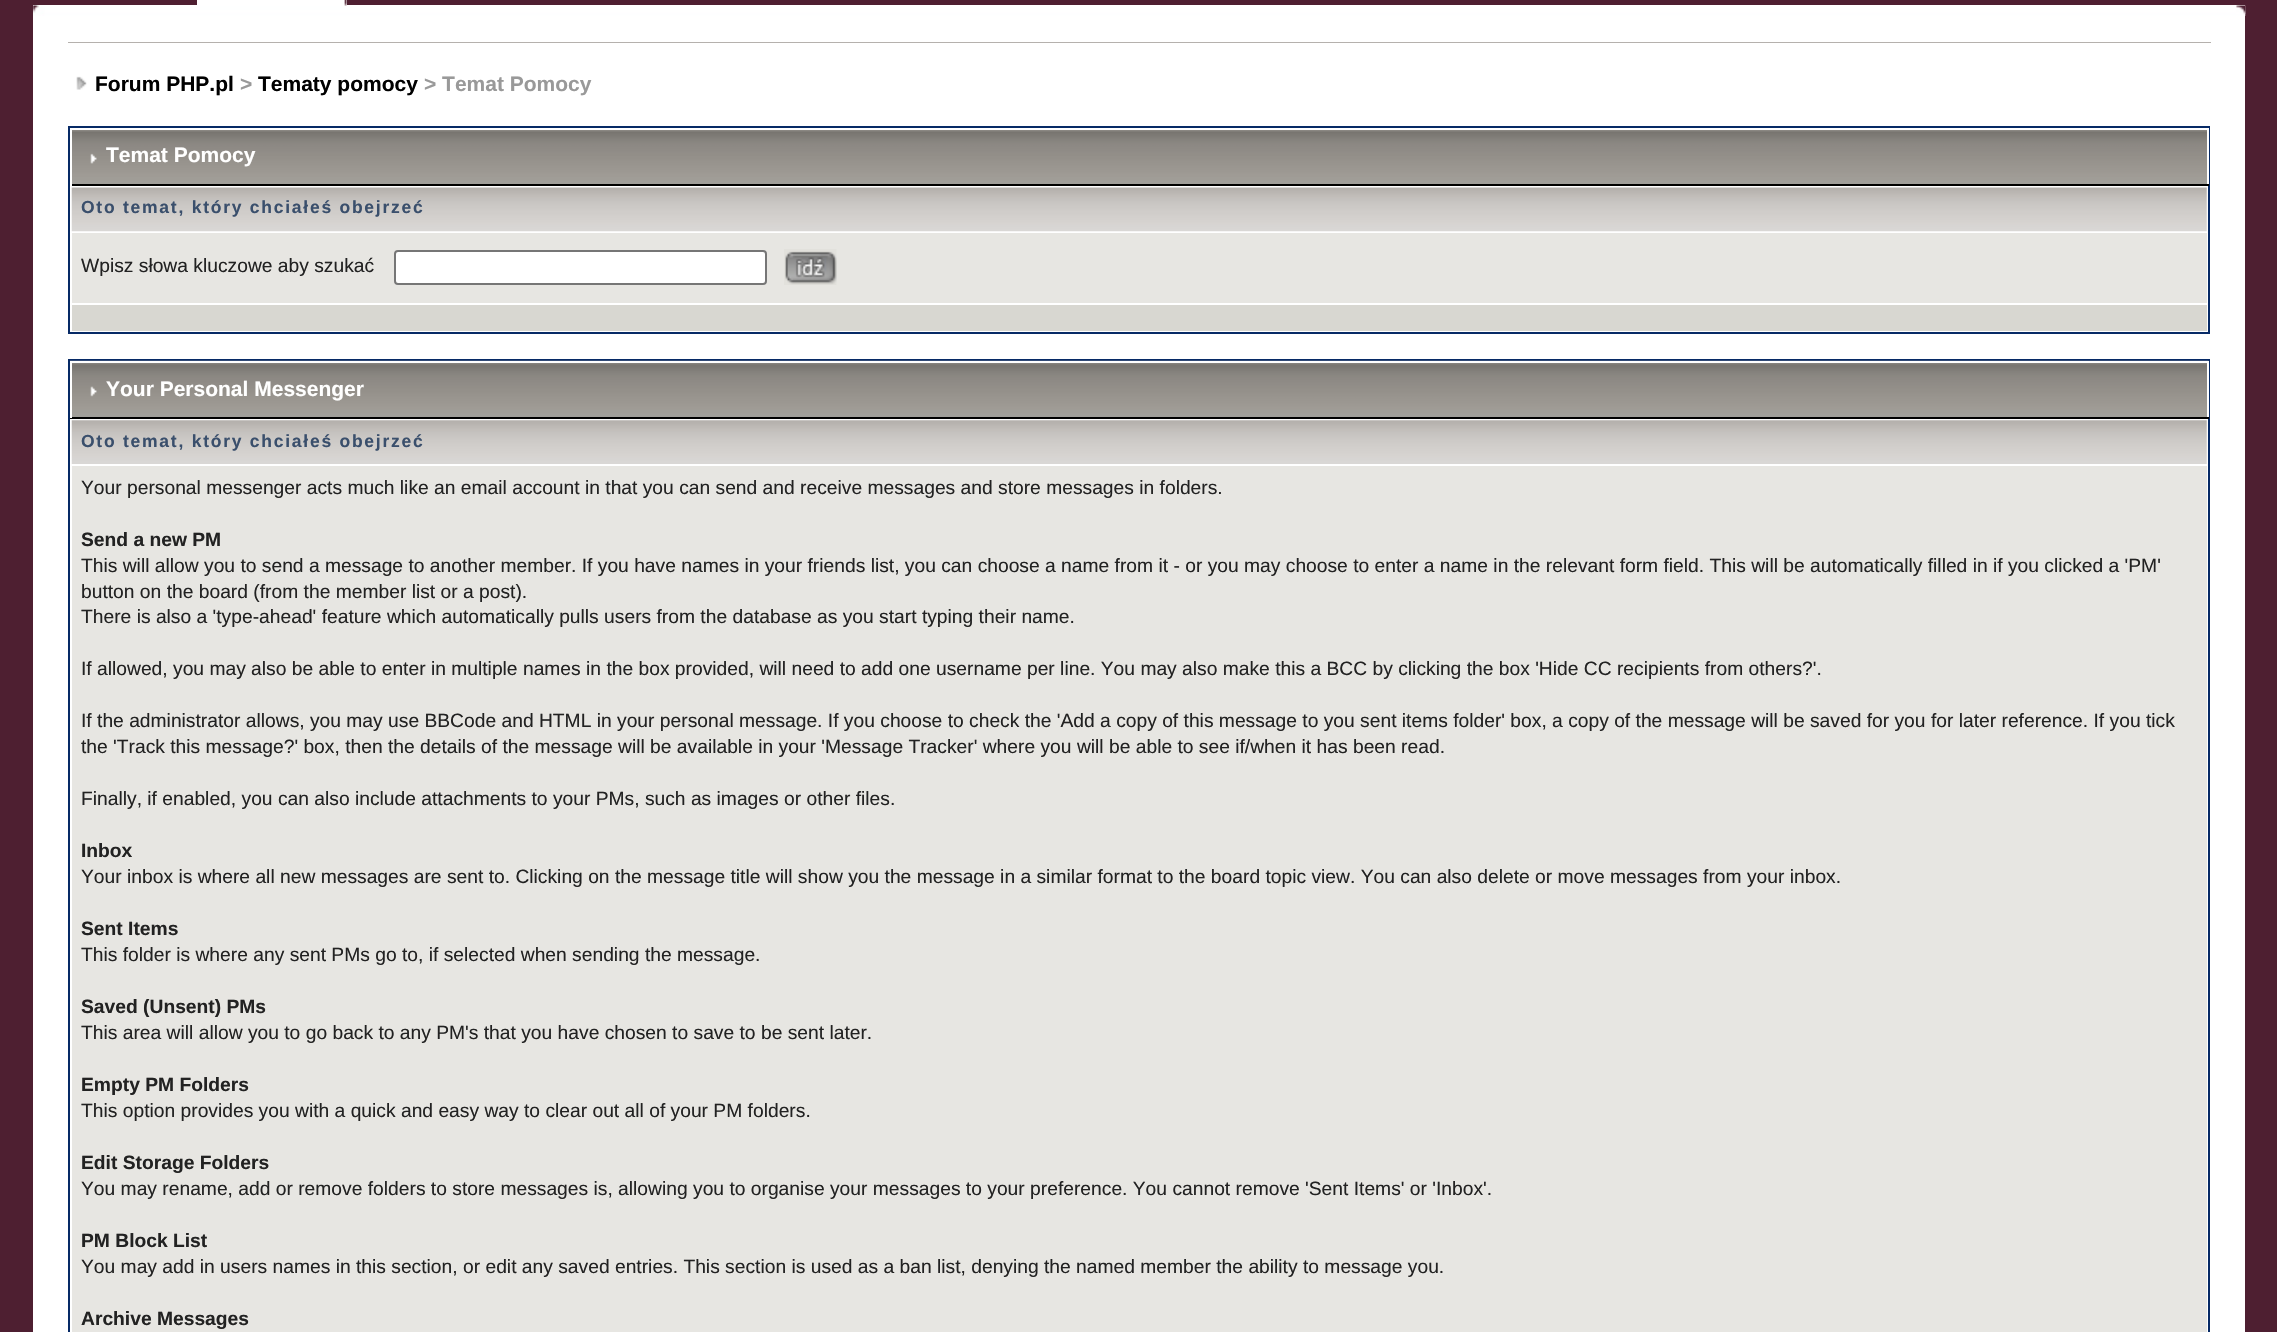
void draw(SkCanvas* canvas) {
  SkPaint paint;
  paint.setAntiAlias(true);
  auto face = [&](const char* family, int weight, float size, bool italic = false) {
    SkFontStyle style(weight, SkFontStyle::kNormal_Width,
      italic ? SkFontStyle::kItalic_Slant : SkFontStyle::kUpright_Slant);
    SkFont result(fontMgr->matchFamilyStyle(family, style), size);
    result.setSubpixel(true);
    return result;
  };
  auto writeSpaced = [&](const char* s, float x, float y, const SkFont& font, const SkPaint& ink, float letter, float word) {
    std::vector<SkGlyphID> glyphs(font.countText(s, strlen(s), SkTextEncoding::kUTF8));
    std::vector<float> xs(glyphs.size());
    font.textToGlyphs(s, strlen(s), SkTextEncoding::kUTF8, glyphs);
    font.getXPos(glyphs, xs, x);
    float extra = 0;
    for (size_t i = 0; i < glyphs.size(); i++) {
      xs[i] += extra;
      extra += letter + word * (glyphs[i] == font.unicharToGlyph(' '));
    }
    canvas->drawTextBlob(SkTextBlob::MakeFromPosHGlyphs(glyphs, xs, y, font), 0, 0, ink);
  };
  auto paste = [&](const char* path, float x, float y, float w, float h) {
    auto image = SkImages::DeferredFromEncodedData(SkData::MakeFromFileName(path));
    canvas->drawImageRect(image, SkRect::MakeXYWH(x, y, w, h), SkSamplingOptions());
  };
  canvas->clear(0xff4e1f31);
  paint.setColor(0xffffffff);
  canvas->drawRect(SkRect::MakeXYWH(197, 0, 150, 5), paint);
  canvas->drawRect(SkRect::MakeXYWH(33, 5, 2212, 1327), paint);
  paste("img/2.png", 33, 5, 2213, 11);
  paste("img/1.png", 344, 0, 3, 6);
  paste("img/3.png", 2236, 5, 10, 10);
  paint.setColor(0xffb5b1ad);
  canvas->drawRect(SkRect::MakeXYWH(68, 42, 2143, 1), paint);
  paste("img/4.png", 76, 76, 11, 14);
  paint.setStroke(true);
  paint.setStrokeWidth(2);
  paint.setColor(0xff072a66);
  canvas->drawRect(SkRect::MakeXYWH(69, 127, 2140, 206), paint);
  paste("img/5.png", 72, 130, 2135, 54);
  paint.setStroke(false);
  {
    const struct { float x, y, w, h; SkColor color; } items[] = {
      {2208, 128, 1, 58, 0xffffffff},
      {70, 184, 2139, 2, 0xff000000},
      {70, 184, 2, 2, 0xffffffff},
    };
    for (auto [x, y, w, h, color] : items) {
      paint.setColor(color);
      canvas->drawRect(SkRect::MakeXYWH(x, y, w, h), paint);
    }
  }
  paste("img/6.png", 90, 153, 7, 11);
  paste("img/7.png", 71, 187, 2136, 45);
  paint.setColor(0xffe7e6e2);
  canvas->drawRect(SkRect::MakeXYWH(72, 233, 2135, 70), paint);
  paint.setColor(0xffffffff);
  canvas->drawRoundRect(SkRect::MakeXYWH(395, 251, 371, 33), 3, 3, paint);
  paint.setStroke(true);
  paint.setColor(0xff767676);
  canvas->drawRoundRect(SkRect::MakeXYWH(395, 251, 371, 33), 3, 3, paint);
  paste("img/8.png", 784, 249, 53, 36);
  paint.setStroke(false);
  paint.setColor(0xffd8d7d1);
  canvas->drawRect(SkRect::MakeXYWH(72, 305, 2135, 26), paint);
  paint.setStroke(true);
  paint.setColor(0xff072a66);
  canvas->drawRect(SkRect::MakeXYWH(69, 360, 2140, 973), paint);
  paste("img/9.png", 70, 360, 2139, 57);
  paint.setStroke(false);
  {
    const struct { float x, y, w, h; SkColor color; } items[] = {
      {70, 361, 2139, 2, 0xffffffff},
      {2207, 361, 2, 57, 0xffffffff},
      {70, 417, 2139, 2, 0xff000000},
      {70, 361, 2, 57, 0xffffffff},
    };
    for (auto [x, y, w, h, color] : items) {
      paint.setColor(color);
      canvas->drawRect(SkRect::MakeXYWH(x, y, w, h), paint);
    }
  }
  paste("img/10.png", 90, 386, 7, 11);
  paste("img/11.png", 71, 420, 2136, 44);
  paint.setColor(0xffe7e6e2);
  canvas->drawRect(SkRect::MakeXYWH(72, 466, 2135, 866), paint);
  auto f0 = face("Liberation Sans", 700, 21);
  paint.setColor(0xff000000);
  canvas->drawString("Forum PHP.pl", 95, 91, f0, paint);
  paint.setColor(0xff999999);
  canvas->drawString(">", 240, 91, f0, paint);
  paint.setColor(0xff000000);
  canvas->drawString("Tematy pomocy", 258, 91, f0, paint);
  paint.setColor(0xff999999);
  canvas->drawString("> Temat Pomocy", 424, 91, f0, paint);
  paint.setColor(0xffffffff);
  canvas->drawString("Temat Pomocy", 106, 162, f0, paint);
  auto f1 = face("Liberation Sans", 700, 17.5f);
  paint.setColor(0xff3a4f6c);
  writeSpaced("Oto temat, który chciałeś obejrzeć", 81, 213, f1, paint, 1.75f, 0);
  auto f2 = face("Liberation Sans", 400, 19.25f);
  paint.setColor(0xff222222);
  canvas->drawString("Wpisz słowa kluczowe aby szukać", 81, 272, f2, paint);
  paint.setColor(0xffffffff);
  canvas->drawString("Your Personal Messenger", 106, 396, f0, paint);
  paint.setColor(0xff3a4f6c);
  writeSpaced("Oto temat, który chciałeś obejrzeć", 81, 447, f1, paint, 1.75f, 0);
  paint.setColor(0xff222222);
  canvas->drawString("Your personal messenger acts much like an email account in that you can send and receive messages and store messages in folders.", 81, 494, f2, paint);
  auto f3 = face("Liberation Sans", 700, 19.25f);
  canvas->drawString("Send a new PM", 81, 546, f3, paint);
  {
    const struct { const char* s; float x, y; } items[] = {
      {"This will allow you to send a message to another member. If you have names in your friends list, you can choose a name from it - or you may choose to enter a name in the relevant form field. This will be automatically filled in if you clicked a 'PM'", 81, 572},
      {"button on the board (from the member list or a post).", 81, 598},
      {"There is also a 'type-ahead' feature which automatically pulls users from the database as you start typing their name.", 81, 623},
      {"If allowed, you may also be able to enter in multiple names in the box provided, will need to add one username per line. You may also make this a BCC by clicking the box 'Hide CC recipients from others?'.", 81, 675},
      {"If the administrator allows, you may use BBCode and HTML in your personal message. If you choose to check the 'Add a copy of this message to you sent items folder' box, a copy of the message will be saved for you for later reference. If you tick", 81, 727},
      {"the 'Track this message?' box, then the details of the message will be available in your 'Message Tracker' where you will be able to see if/when it has been read.", 81, 753},
      {"Finally, if enabled, you can also include attachments to your PMs, such as images or other files.", 81, 805},
    };
    for (auto [s, x, y] : items) {
      canvas->drawString(s, x, y, f2, paint);
    }
  }
  canvas->drawString("Inbox", 81, 857, f3, paint);
  canvas->drawString("Your inbox is where all new messages are sent to. Clicking on the message title will show you the message in a similar format to the board topic view. You can also delete or move messages from your inbox.", 81, 883, f2, paint);
  canvas->drawString("Sent Items", 81, 935, f3, paint);
  canvas->drawString("This folder is where any sent PMs go to, if selected when sending the message.", 81, 961, f2, paint);
  canvas->drawString("Saved (Unsent) PMs", 81, 1013, f3, paint);
  canvas->drawString("This area will allow you to go back to any PM's that you have chosen to save to be sent later.", 81, 1039, f2, paint);
  canvas->drawString("Empty PM Folders", 81, 1091, f3, paint);
  canvas->drawString("This option provides you with a quick and easy way to clear out all of your PM folders.", 81, 1117, f2, paint);
  canvas->drawString("Edit Storage Folders", 81, 1169, f3, paint);
  canvas->drawString("You may rename, add or remove folders to store messages is, allowing you to organise your messages to your preference. You cannot remove 'Sent Items' or 'Inbox'.", 81, 1195, f2, paint);
  canvas->drawString("PM Block List", 81, 1247, f3, paint);
  canvas->drawString("You may add in users names in this section, or edit any saved entries. This section is used as a ban list, denying the named member the ability to message you.", 81, 1273, f2, paint);
  canvas->drawString("Archive Messages", 81, 1325, f3, paint);
}
